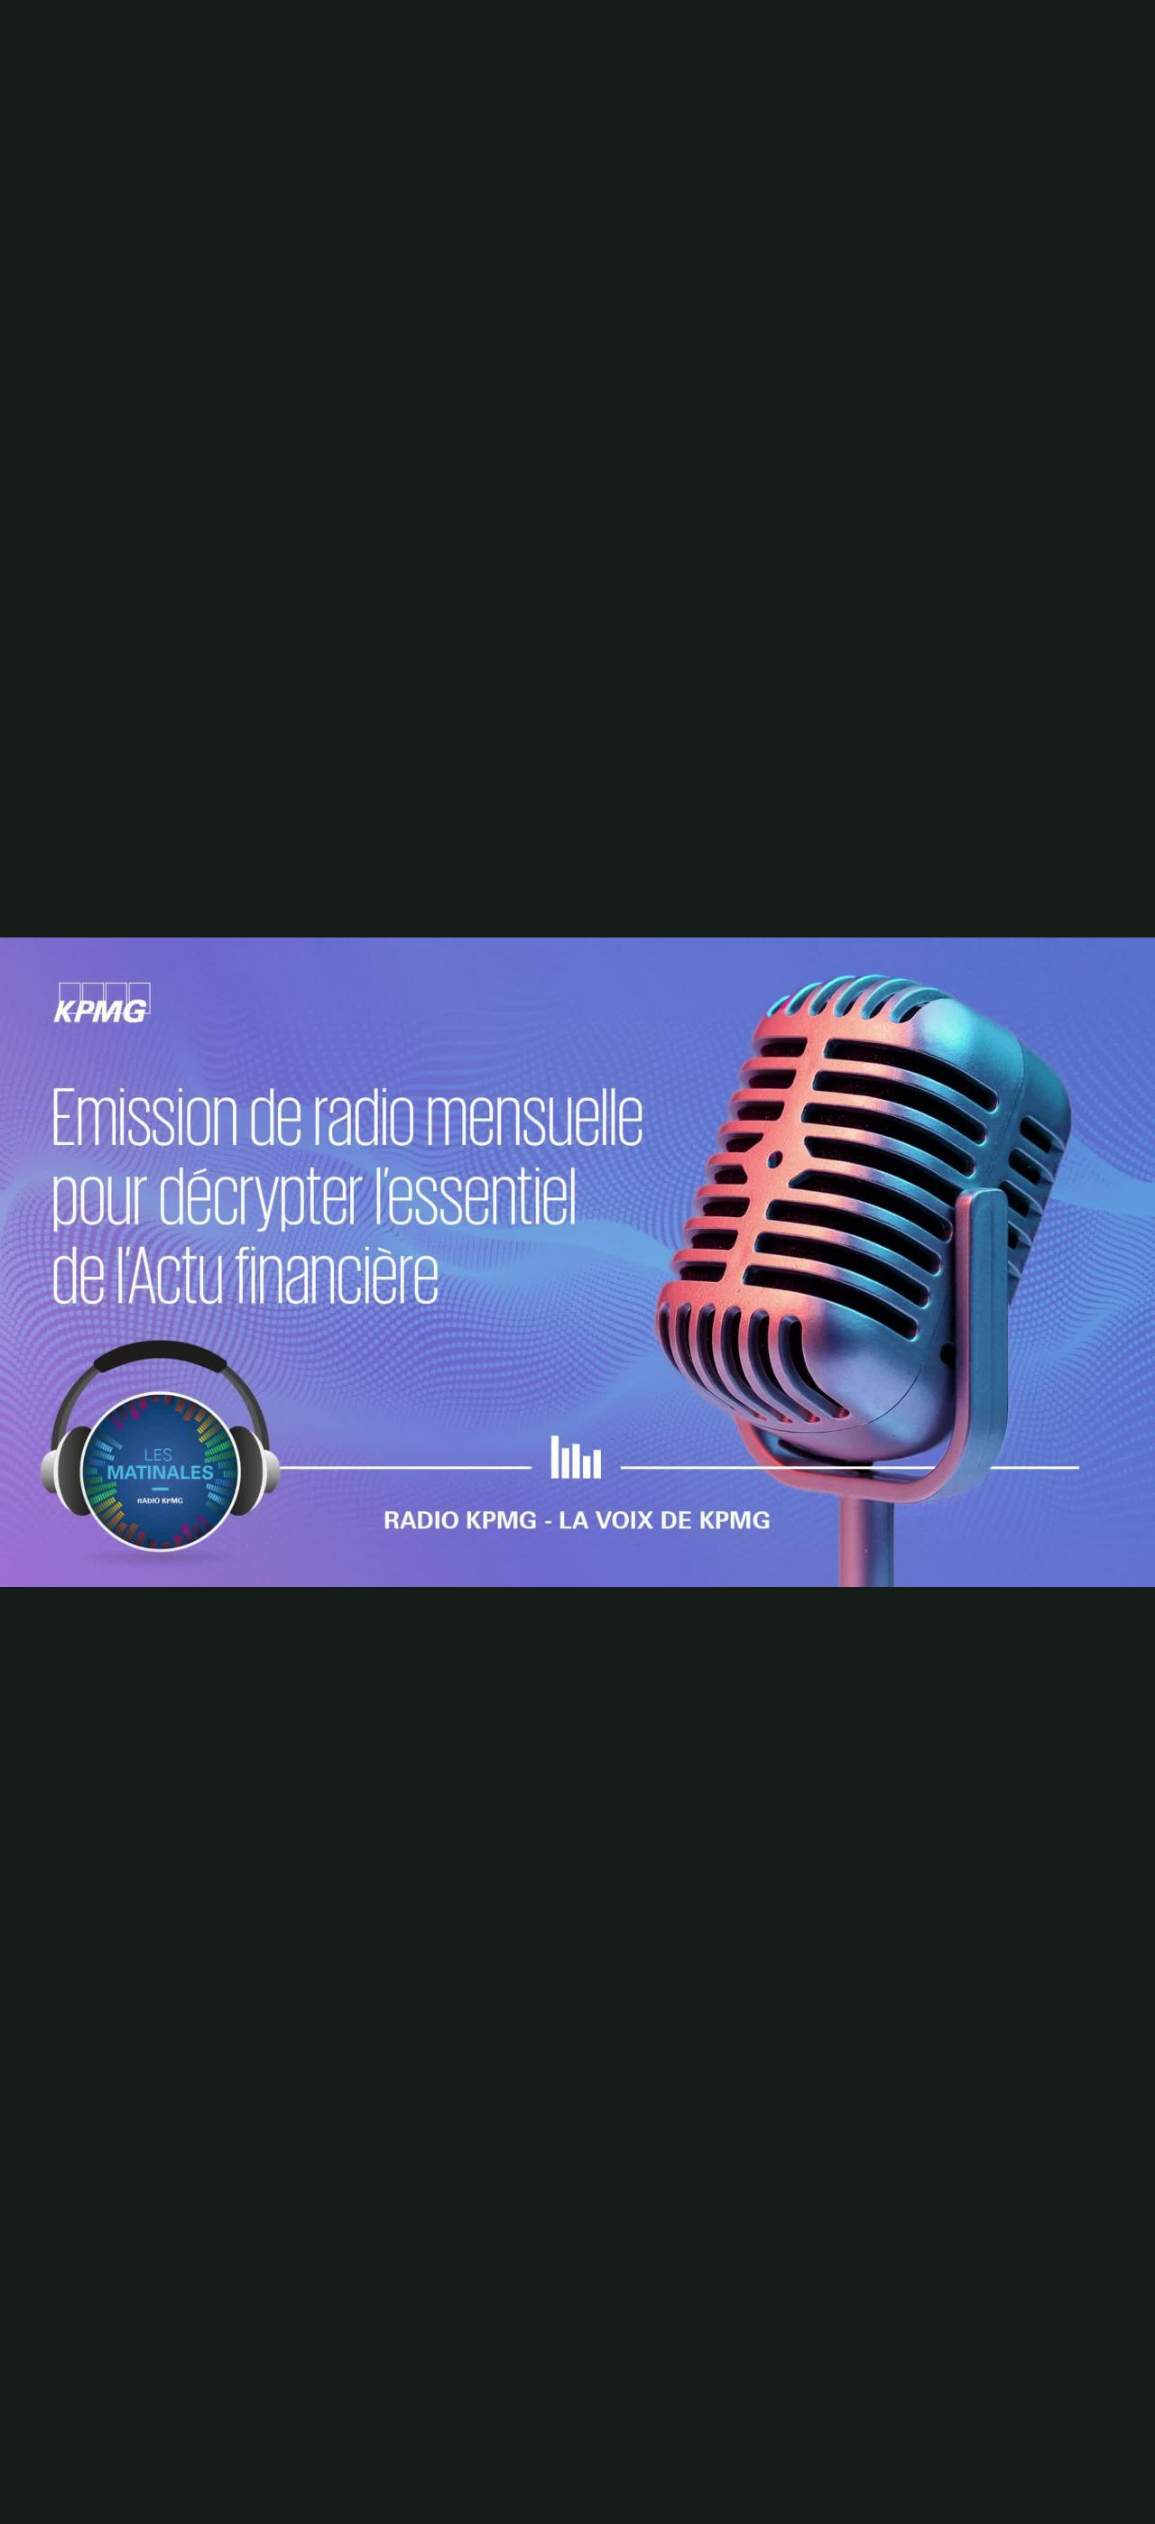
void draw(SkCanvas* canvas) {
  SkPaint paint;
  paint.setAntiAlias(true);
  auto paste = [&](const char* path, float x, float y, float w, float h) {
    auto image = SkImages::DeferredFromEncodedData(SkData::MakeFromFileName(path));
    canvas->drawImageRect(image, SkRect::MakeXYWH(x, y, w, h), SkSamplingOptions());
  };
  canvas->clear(0xff151b17);
  paste("img/1.png", 0, 937, 1155, 650);
}
